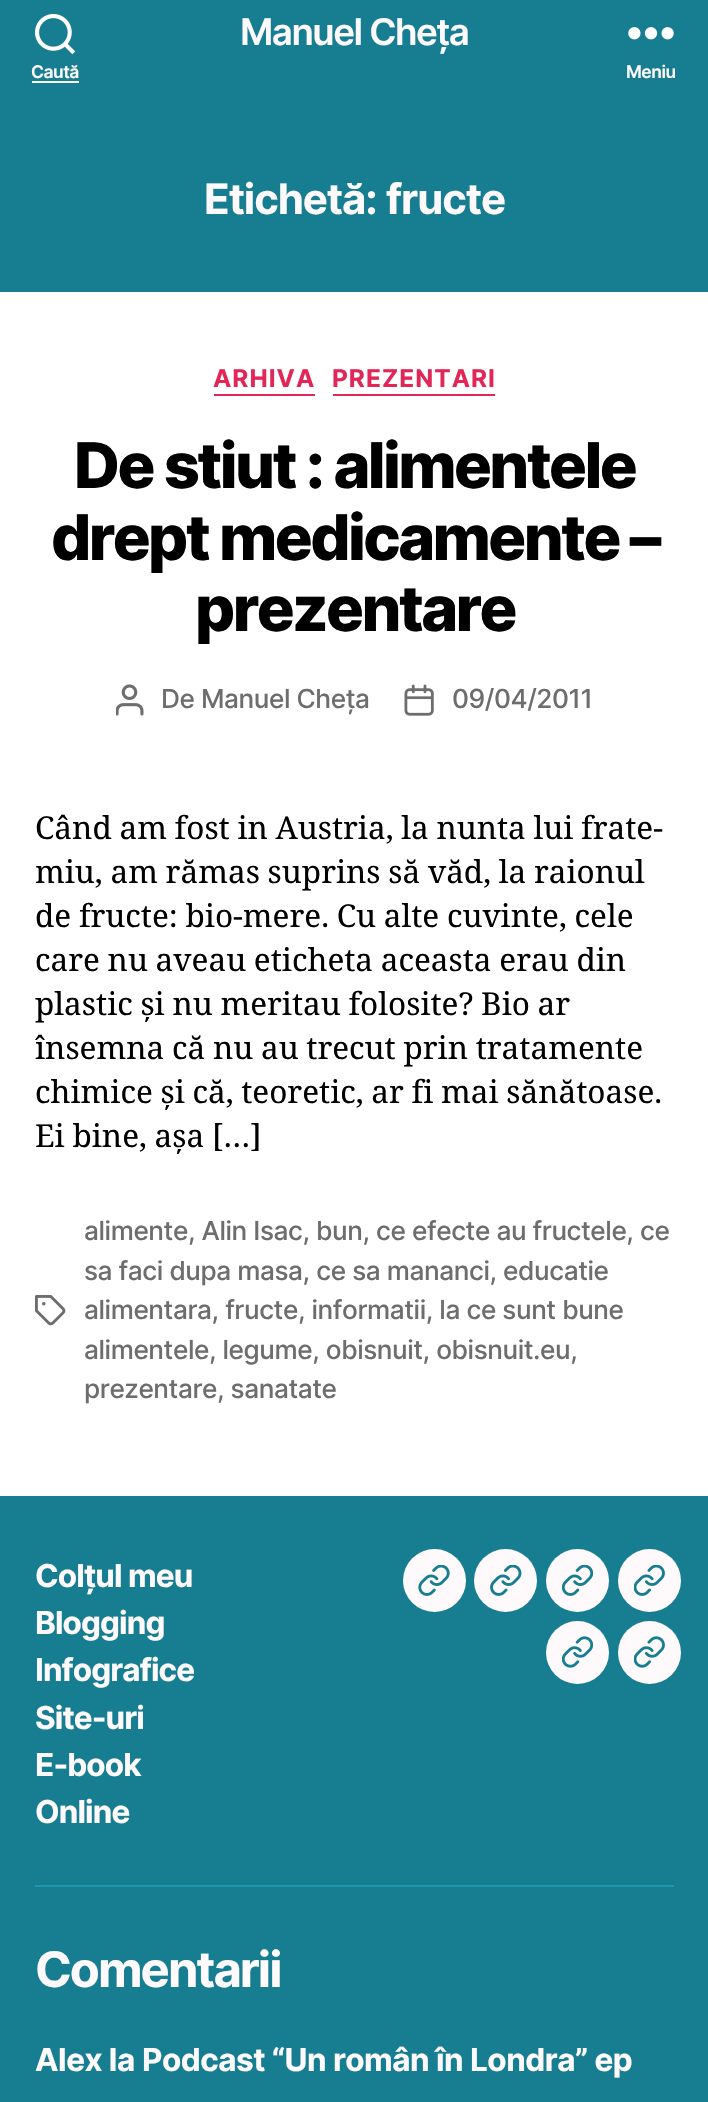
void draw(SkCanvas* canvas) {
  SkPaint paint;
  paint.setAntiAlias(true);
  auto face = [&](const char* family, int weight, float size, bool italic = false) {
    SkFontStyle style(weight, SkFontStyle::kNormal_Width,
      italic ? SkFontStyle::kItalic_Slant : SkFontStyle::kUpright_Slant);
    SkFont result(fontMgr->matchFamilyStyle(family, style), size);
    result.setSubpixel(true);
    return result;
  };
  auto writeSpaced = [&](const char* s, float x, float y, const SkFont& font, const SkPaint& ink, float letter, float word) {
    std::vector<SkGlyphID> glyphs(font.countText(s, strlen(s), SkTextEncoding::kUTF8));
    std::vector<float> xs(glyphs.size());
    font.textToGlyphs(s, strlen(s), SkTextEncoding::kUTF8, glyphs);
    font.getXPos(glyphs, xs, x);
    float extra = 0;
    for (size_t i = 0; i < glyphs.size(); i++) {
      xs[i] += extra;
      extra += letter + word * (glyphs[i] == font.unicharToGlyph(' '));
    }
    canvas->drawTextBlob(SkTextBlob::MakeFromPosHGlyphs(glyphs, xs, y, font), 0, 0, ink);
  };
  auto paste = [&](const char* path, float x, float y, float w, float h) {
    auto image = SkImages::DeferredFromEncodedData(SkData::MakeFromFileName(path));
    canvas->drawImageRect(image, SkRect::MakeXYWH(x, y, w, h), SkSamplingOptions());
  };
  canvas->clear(0xffffffff);
  paint.setColor(0xff177d91);
  canvas->drawRect(SkRect::MakeXYWH(0, 0, 708, 292), paint);
  paste("img/1.png", 35, 14, 40, 41);
  paint.setColor(0xffffffff);
  canvas->drawRect(SkRect::MakeXYWH(32, 81, 47, 2), paint);
  paste("img/2.png", 628, 27, 46, 13);
  paint.setColor(0xffe22658);
  canvas->drawRect(SkRect::MakeXYWH(214, 394, 101, 2), paint);
  canvas->drawRect(SkRect::MakeXYWH(333, 394, 162, 2), paint);
  paste("img/3.png", 116, 684, 28, 32);
  paste("img/4.png", 404, 684, 30, 32);
  paste("img/5.png", 35, 1295, 31, 31);
  paint.setColor(0xff177d91);
  canvas->drawRect(SkRect::MakeXYWH(0, 1496, 708, 606), paint);
  paint.setColor(0xff1998b2);
  canvas->drawRect(SkRect::MakeXYWH(35, 1885, 639, 2), paint);
  paint.setColor(0xfffefafb);
  canvas->drawCircle(434.5f, 1580.5f, 31.5f, paint);
  paste("img/6.png", 418, 1565, 32, 31);
  canvas->drawCircle(505.5f, 1580.5f, 31.5f, paint);
  paste("img/7.png", 490, 1565, 32, 31);
  canvas->drawCircle(577.5f, 1580.5f, 31.5f, paint);
  paste("img/8.png", 562, 1565, 31, 31);
  canvas->drawCircle(649.5f, 1580.5f, 31.5f, paint);
  paste("img/9.png", 634, 1565, 31, 31);
  canvas->drawCircle(577.5f, 1652.5f, 31.5f, paint);
  paste("img/10.png", 562, 1636, 31, 32);
  canvas->drawCircle(649.5f, 1652.5f, 31.5f, paint);
  paste("img/11.png", 634, 1636, 31, 32);
  auto f0 = face("Inter", 600, 36.75f);
  writeSpaced("Manuel Cheța", 240, 45, f0, paint, -1.5f, 0);
  auto f1 = face("Inter", 600, 17.5f);
  writeSpaced("Caută", 31, 78, f1, paint, -0.5f, 0);
  writeSpaced("Meniu", 626, 78, f1, paint, -0.5f, 0);
  auto f2 = face("Inter", 700, 42);
  writeSpaced("Etichetă:", 204, 214, f2, paint, -1.1f, 0);
  writeSpaced("fructe", 386, 214, f2, paint, -1.1f, 0);
  auto f3 = face("Inter", 700, 24.5f);
  paint.setColor(0xffe22658);
  writeSpaced("ARHIVA", 213, 387, f3, paint, 1, 0);
  writeSpaced("PREZENTARI", 332, 387, f3, paint, 1, 0);
  auto f4 = face("Inter", 800, 63);
  paint.setColor(0xff000000);
  {
    const struct { const char* s; float x, y; } items[] = {
      {"De stiut : alimentele", 74, 488},
      {"drept medicamente –", 51, 560},
      {"prezentare", 195, 631},
    };
    for (auto [s, x, y] : items) {
      writeSpaced(s, x, y, f4, paint, -2.6f, 0);
    }
  }
  auto f5 = face("Inter", 500, 26.25f);
  paint.setColor(0xff6d6d6d);
  writeSpaced("De Manuel Cheța", 161, 708, f5, paint, -0.45f, 0);
  writeSpaced("09/04/2011", 452, 708, f5, paint, -0.45f, 0);
  auto f6 = face("Noto Serif", 400, 31.5f);
  paint.setColor(0xff000000);
  {
    const struct { const char* s; float x, y; } items[] = {
      {"Când am fost in Austria, la nunta lui frate-", 35, 839},
      {"miu, am rămas suprins să văd, la raionul", 35, 883},
      {"de fructe: bio-mere. Cu alte cuvinte, cele", 35, 927},
      {"care nu aveau eticheta aceasta erau din", 35, 971},
      {"plastic și nu meritau folosite? Bio ar", 35, 1015},
      {"însemna că nu au trecut prin tratamente", 35, 1059},
      {"chimice și că, teoretic, ar fi mai sănătoase.", 35, 1103},
      {"Ei bine, așa […]", 35, 1147},
    };
    for (auto [s, x, y] : items) {
      writeSpaced(s, x, y, f6, paint, 0, -0.5f);
    }
  }
  paint.setColor(0xff6d6d6d);
  {
    const struct { const char* s; float x, y; } items[] = {
      {"alimente, Alin Isac, bun, ce efecte au fructele, ce", 84, 1240},
      {"sa faci dupa masa, ce sa mananci, educatie", 84, 1280},
      {"alimentara, fructe, informatii, la ce sunt bune", 84, 1319},
      {"alimentele, legume, obisnuit, obisnuit.eu,", 84, 1359},
      {"prezentare, sanatate", 84, 1398},
    };
    for (auto [s, x, y] : items) {
      writeSpaced(s, x, y, f5, paint, -0.45f, 0);
    }
  }
  auto f7 = face("Inter", 700, 31.5f);
  paint.setColor(0xfffefafb);
  {
    const struct { const char* s; float x, y; } items[] = {
      {"Colțul meu", 35, 1587},
      {"Blogging", 35, 1634},
      {"Infografice", 35, 1681},
      {"Site-uri", 35, 1729},
      {"E-book", 35, 1776},
      {"Online", 35, 1823},
    };
    for (auto [s, x, y] : items) {
      writeSpaced(s, x, y, f7, paint, -0.9f, 0);
    }
  }
  auto f8 = face("Inter", 700, 49);
  writeSpaced("Comentarii", 35, 1987, f8, paint, -2, 0);
  writeSpaced("Alex la", 35, 2071, f7, paint, -0.5f, 0);
  writeSpaced("Podcast “Un român în Londra” ep", 142, 2071, f7, paint, -0.5f, 0);
}
